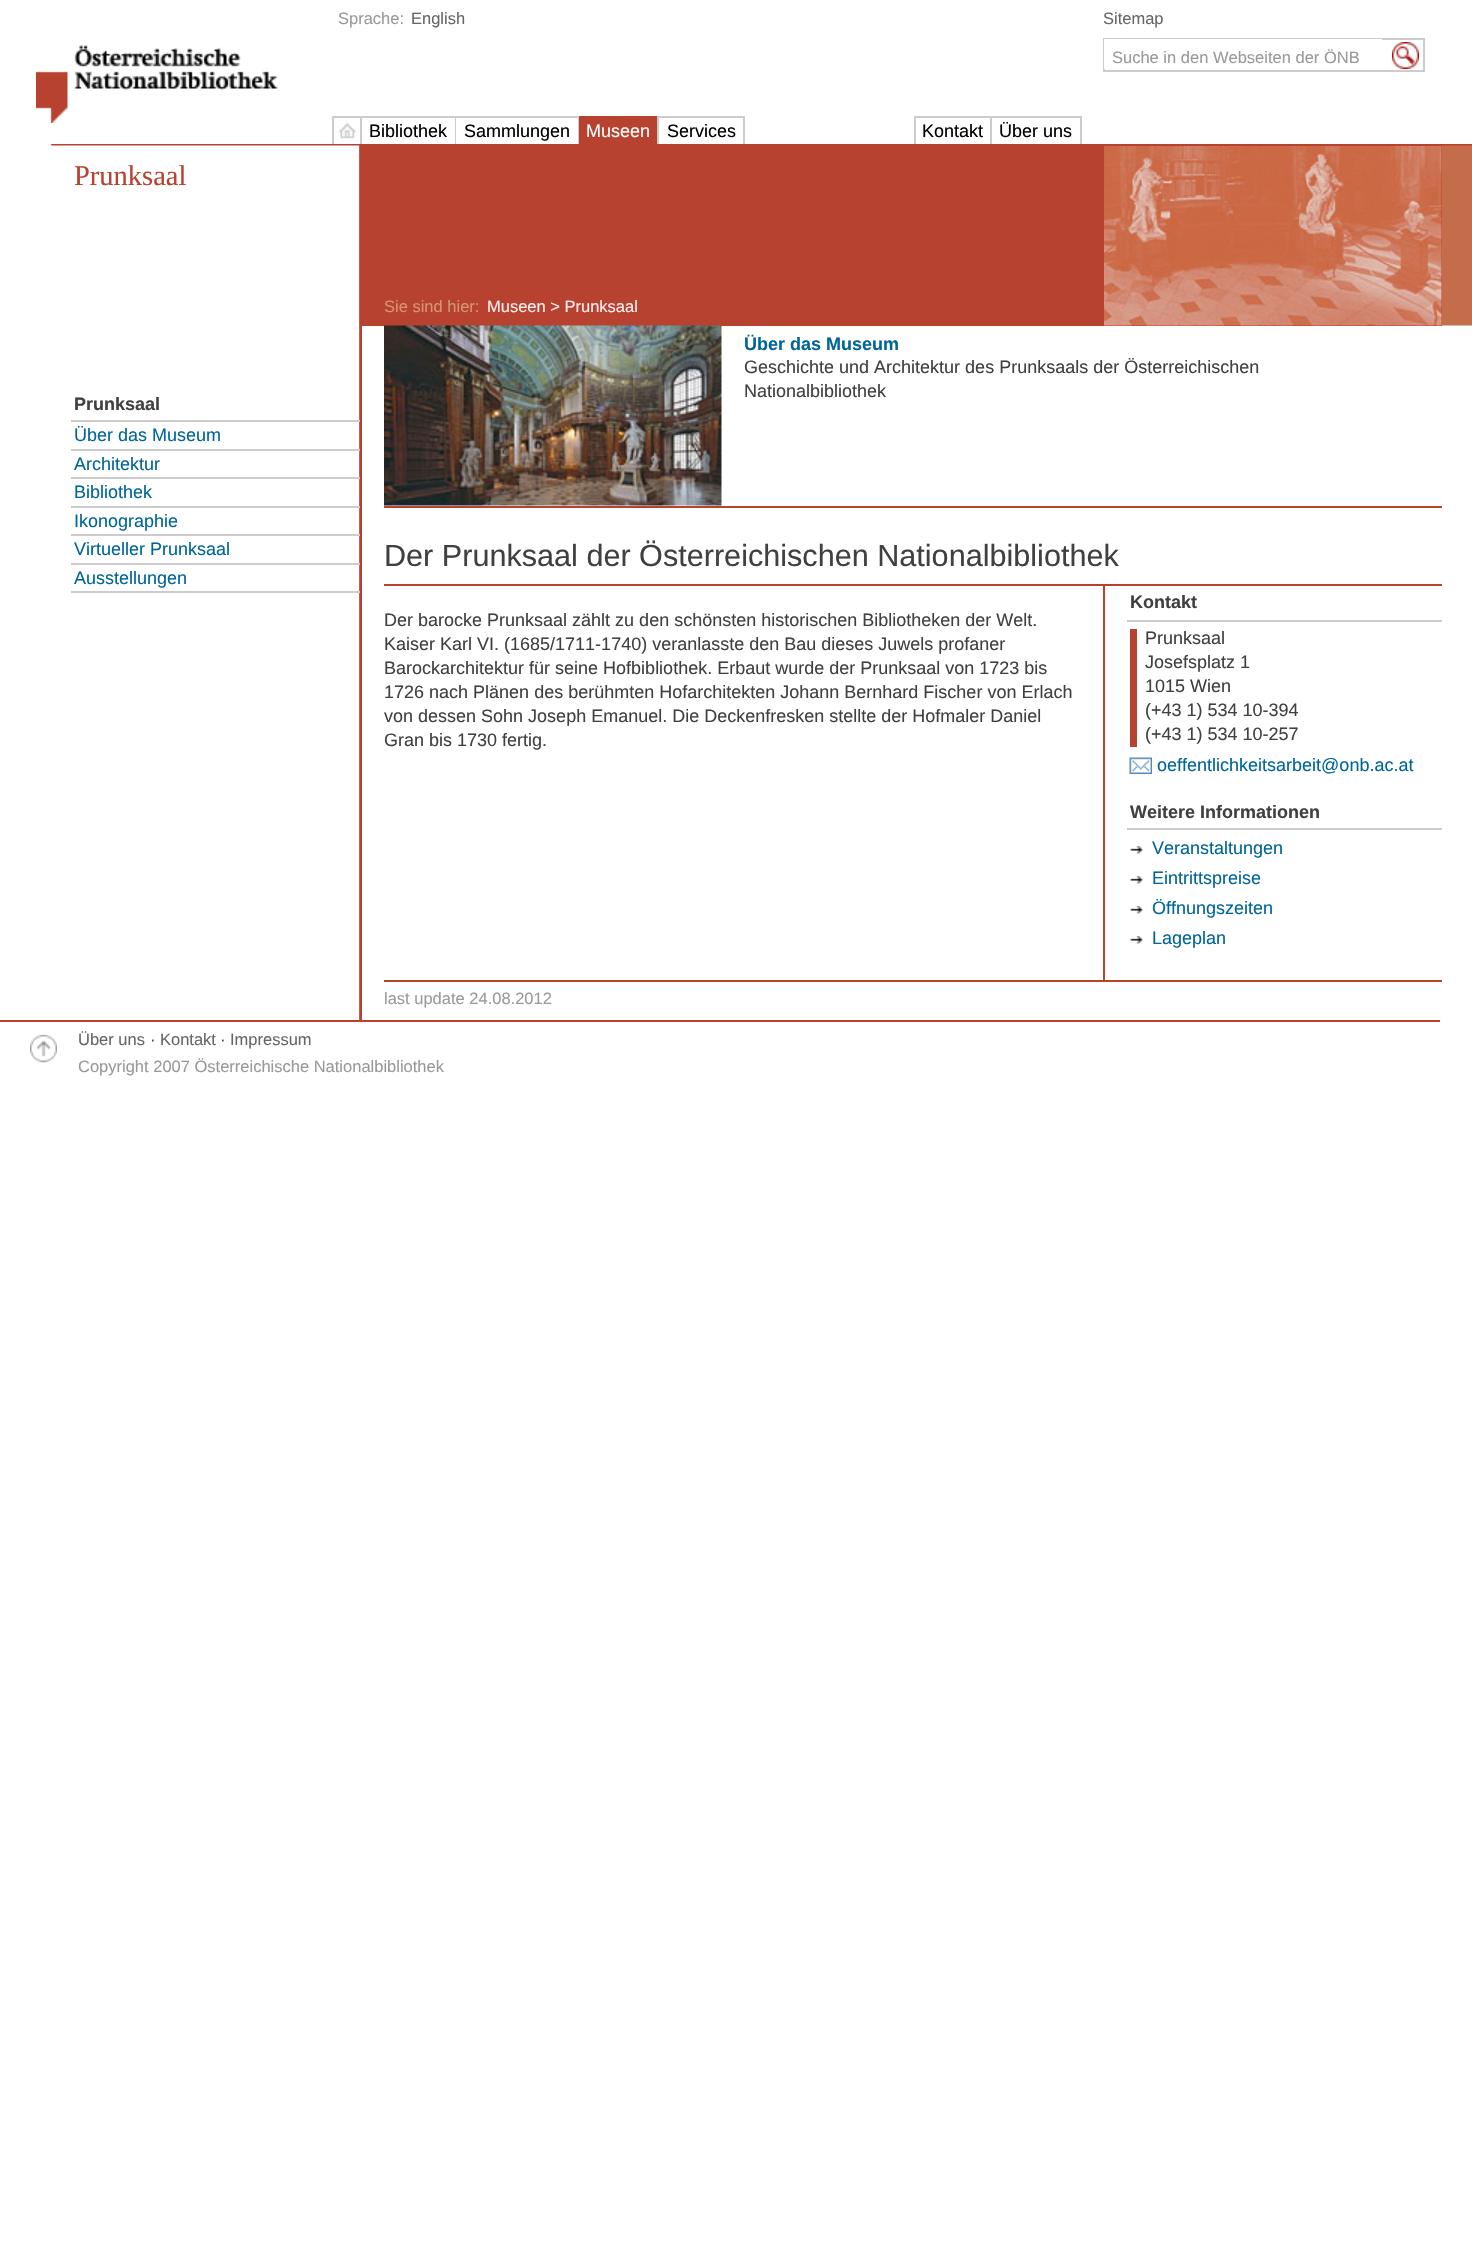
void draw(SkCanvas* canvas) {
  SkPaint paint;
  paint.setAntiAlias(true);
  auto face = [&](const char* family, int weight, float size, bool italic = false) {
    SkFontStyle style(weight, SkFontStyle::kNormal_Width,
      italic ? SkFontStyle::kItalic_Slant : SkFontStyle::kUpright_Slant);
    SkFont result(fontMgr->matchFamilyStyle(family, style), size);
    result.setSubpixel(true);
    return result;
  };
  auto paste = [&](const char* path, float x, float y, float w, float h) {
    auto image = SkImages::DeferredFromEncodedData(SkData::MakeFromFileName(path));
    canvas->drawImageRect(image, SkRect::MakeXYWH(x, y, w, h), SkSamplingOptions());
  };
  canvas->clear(0xffffffff);
  paint.setStroke(true);
  paint.setStrokeWidth(2);
  paint.setColor(0xffcccccc);
  canvas->drawRect(SkRect::MakeXYWH(1104, 39, 320, 32), paint);
  paint.setStroke(false);
  paint.setColor(0xffffffff);
  canvas->drawRect(SkRect::MakeXYWH(1104, 39, 278, 30), paint);
  paste("img/1.png", 1392, 42, 27, 27);
  paste("img/2.png", 36, 45, 242, 78);
  {
    const struct { float x, y, w, h; SkColor color; } items[] = {
      {332, 116, 247, 2, 0xffcccccc},
      {360, 116, 2, 28, 0xffcccccc},
      {332, 116, 2, 28, 0xffcccccc},
    };
    for (auto [x, y, w, h, color] : items) {
      paint.setColor(color);
      canvas->drawRect(SkRect::MakeXYWH(x, y, w, h), paint);
    }
  }
  paste("img/3.png", 338, 122, 18, 17);
  {
    const struct { float x, y, w, h; SkColor color; } items[] = {
      {455, 116, 1, 28, 0xffcccccc},
      {578, 116, 1, 28, 0xffcccccc},
      {579, 116, 80, 1, 0xffb7422f},
      {657, 116, 2, 28, 0xffcccccc},
      {579, 117, 78, 27, 0xffb7422f},
      {659, 116, 85, 2, 0xffcccccc},
      {743, 116, 2, 28, 0xffcccccc},
      {914, 116, 168, 2, 0xffcccccc},
      {990, 116, 2, 28, 0xffcccccc},
      {914, 116, 2, 28, 0xffcccccc},
      {1080, 116, 2, 28, 0xffcccccc},
    };
    for (auto [x, y, w, h, color] : items) {
      paint.setColor(color);
      canvas->drawRect(SkRect::MakeXYWH(x, y, w, h), paint);
    }
  }
  paste("img/4.png", 50, 144, 1422, 182);
  {
    const struct { float x, y, w, h; SkColor color; } items[] = {
      {359, 145, 1, 875, 0xd6b7422f},
      {71, 420, 289, 2, 0xffcccccc},
      {71, 449, 289, 2, 0xffcccccc},
      {71, 477, 289, 2, 0xffcccccc},
      {71, 506, 289, 2, 0xffcccccc},
      {71, 534, 289, 2, 0xffcccccc},
      {71, 563, 289, 2, 0xffcccccc},
      {71, 591, 289, 2, 0xffcccccc},
      {360, 144, 2, 876, 0xffb7422f},
      {362, 145, 1080, 181, 0xffb7422f},
    };
    for (auto [x, y, w, h, color] : items) {
      paint.setColor(color);
      canvas->drawRect(SkRect::MakeXYWH(x, y, w, h), paint);
    }
  }
  paste("img/5.png", 1104, 146, 338, 180);
  canvas->drawRect(SkRect::MakeXYWH(384, 506, 1058, 2), paint);
  paste("img/6.png", 384, 325, 338, 181);
  {
    const struct { float x, y, w, h; SkColor color; } items[] = {
      {384, 584, 1058, 2, 0xffb7422f},
      {1103, 585, 2, 395, 0xffb7422f},
      {1127, 620, 315, 2, 0xffcccccc},
      {1130, 629, 7, 118, 0xffb7422f},
    };
    for (auto [x, y, w, h, color] : items) {
      paint.setColor(color);
      canvas->drawRect(SkRect::MakeXYWH(x, y, w, h), paint);
    }
  }
  paste("img/7.png", 1129, 757, 23, 17);
  paint.setColor(0xffcccccc);
  canvas->drawRect(SkRect::MakeXYWH(1127, 828, 315, 2), paint);
  paste("img/8.png", 1129, 846, 14, 8);
  paste("img/8.png", 1129, 876, 14, 8);
  paste("img/8.png", 1129, 906, 14, 8);
  paste("img/8.png", 1129, 936, 14, 8);
  paint.setColor(0xffb7422f);
  canvas->drawRect(SkRect::MakeXYWH(384, 980, 1058, 2), paint);
  canvas->drawRect(SkRect::MakeXYWH(0, 1020, 1440, 2), paint);
  paste("img/9.png", 30, 1034, 27, 29);
  auto f0 = face("Liberation Sans", 400, 16.5f);
  paint.setColor(0xff999999);
  canvas->drawString("Sprache:", 338, 24, f0, paint);
  paint.setColor(0xff666666);
  canvas->drawString("English", 411, 24, f0, paint);
  canvas->drawString("Sitemap", 1103, 24, f0, paint);
  paint.setColor(0xff999999);
  canvas->drawString("Suche in den Webseiten der ÖNB", 1112, 63, f0, paint);
  auto f1 = face("Liberation Sans", 400, 18);
  paint.setColor(0xff000000);
  canvas->drawString("Bibliothek", 369, 137, f1, paint);
  canvas->drawString("Sammlungen", 464, 137, f1, paint);
  paint.setColor(0xffffffff);
  canvas->drawString("Museen", 586, 137, f1, paint);
  paint.setColor(0xff000000);
  {
    const struct { const char* s; float x, y; } items[] = {
      {"Services", 667, 137},
      {"Kontakt", 922, 137},
      {"Über uns", 999, 137},
    };
    for (auto [s, x, y] : items) {
      canvas->drawString(s, x, y, f1, paint);
    }
  }
  auto f2 = face("Liberation Serif", 400, 28.5f);
  paint.setColor(0xffb7422f);
  canvas->drawString("Prunksaal", 74, 185, f2, paint);
  auto f3 = face("Liberation Sans", 700, 18);
  paint.setColor(0xff404040);
  canvas->drawString("Prunksaal", 74, 410, f3, paint);
  paint.setColor(0xff006699);
  {
    const struct { const char* s; float x, y; } items[] = {
      {"Über das Museum", 74, 441},
      {"Architektur", 74, 470},
      {"Bibliothek", 74, 498},
      {"Ikonographie", 74, 527},
      {"Virtueller Prunksaal", 74, 555},
      {"Ausstellungen", 74, 584},
    };
    for (auto [s, x, y] : items) {
      canvas->drawString(s, x, y, f1, paint);
    }
  }
  paint.setColor(0xffd59675);
  canvas->drawString("Sie sind hier:", 384, 312, f0, paint);
  paint.setColor(0xffffeeee);
  canvas->drawString("Museen > Prunksaal", 487, 312, f0, paint);
  paint.setColor(0xff006699);
  canvas->drawString("Über das Museum", 744, 350, f3, paint);
  paint.setColor(0xff404040);
  canvas->drawString("Geschichte und Architektur des Prunksaals der Österreichischen", 744, 373, f1, paint);
  canvas->drawString("Nationalbibliothek", 744, 397, f1, paint);
  auto f4 = face("Liberation Sans", 400, 30.6f);
  canvas->drawString("Der Prunksaal der Österreichischen Nationalbibliothek", 384, 566, f4, paint);
  {
    const struct { const char* s; float x, y; } items[] = {
      {"Der barocke Prunksaal zählt zu den schönsten historischen Bibliotheken der Welt.", 384, 626},
      {"Kaiser Karl VI. (1685/1711-1740) veranlasste den Bau dieses Juwels profaner", 384, 650},
      {"Barockarchitektur für seine Hofbibliothek. Erbaut wurde der Prunksaal von 1723 bis", 384, 674},
      {"1726 nach Plänen des berühmten Hofarchitekten Johann Bernhard Fischer von Erlach", 384, 698},
      {"von dessen Sohn Joseph Emanuel. Die Deckenfresken stellte der Hofmaler Daniel", 384, 722},
      {"Gran bis 1730 fertig.", 384, 746},
    };
    for (auto [s, x, y] : items) {
      canvas->drawString(s, x, y, f1, paint);
    }
  }
  canvas->drawString("Kontakt", 1130, 608, f3, paint);
  {
    const struct { const char* s; float x, y; } items[] = {
      {"Prunksaal", 1145, 644},
      {"Josefsplatz 1", 1145, 668},
      {"1015 Wien", 1145, 692},
      {"(+43 1) 534 10-394", 1145, 716},
      {"(+43 1) 534 10-257", 1145, 740},
    };
    for (auto [s, x, y] : items) {
      canvas->drawString(s, x, y, f1, paint);
    }
  }
  paint.setColor(0xff006699);
  canvas->drawString("oeffentlichkeitsarbeit@onb.ac.at", 1157, 771, f1, paint);
  paint.setColor(0xff404040);
  canvas->drawString("Weitere Informationen", 1130, 818, f3, paint);
  paint.setColor(0xff006699);
  {
    const struct { const char* s; float x, y; } items[] = {
      {"Veranstaltungen", 1152, 854},
      {"Eintrittspreise", 1152, 884},
      {"Öffnungszeiten", 1152, 914},
      {"Lageplan", 1152, 944},
    };
    for (auto [s, x, y] : items) {
      canvas->drawString(s, x, y, f1, paint);
    }
  }
  paint.setColor(0xff999999);
  canvas->drawString("last update 24.08.2012", 384, 1004, f0, paint);
  paint.setColor(0xff666666);
  canvas->drawString("Über uns", 78, 1045, f0, paint);
  paint.setColor(0xff404040);
  canvas->drawString("·", 150, 1045, f0, paint);
  paint.setColor(0xff666666);
  canvas->drawString("Kontakt", 160, 1045, f0, paint);
  paint.setColor(0xff404040);
  canvas->drawString("·", 220, 1045, f0, paint);
  paint.setColor(0xff666666);
  canvas->drawString("Impressum", 230, 1045, f0, paint);
  paint.setColor(0xff999999);
  canvas->drawString("Copyright 2007 Österreichische Nationalbibliothek", 78, 1072, f0, paint);
}
